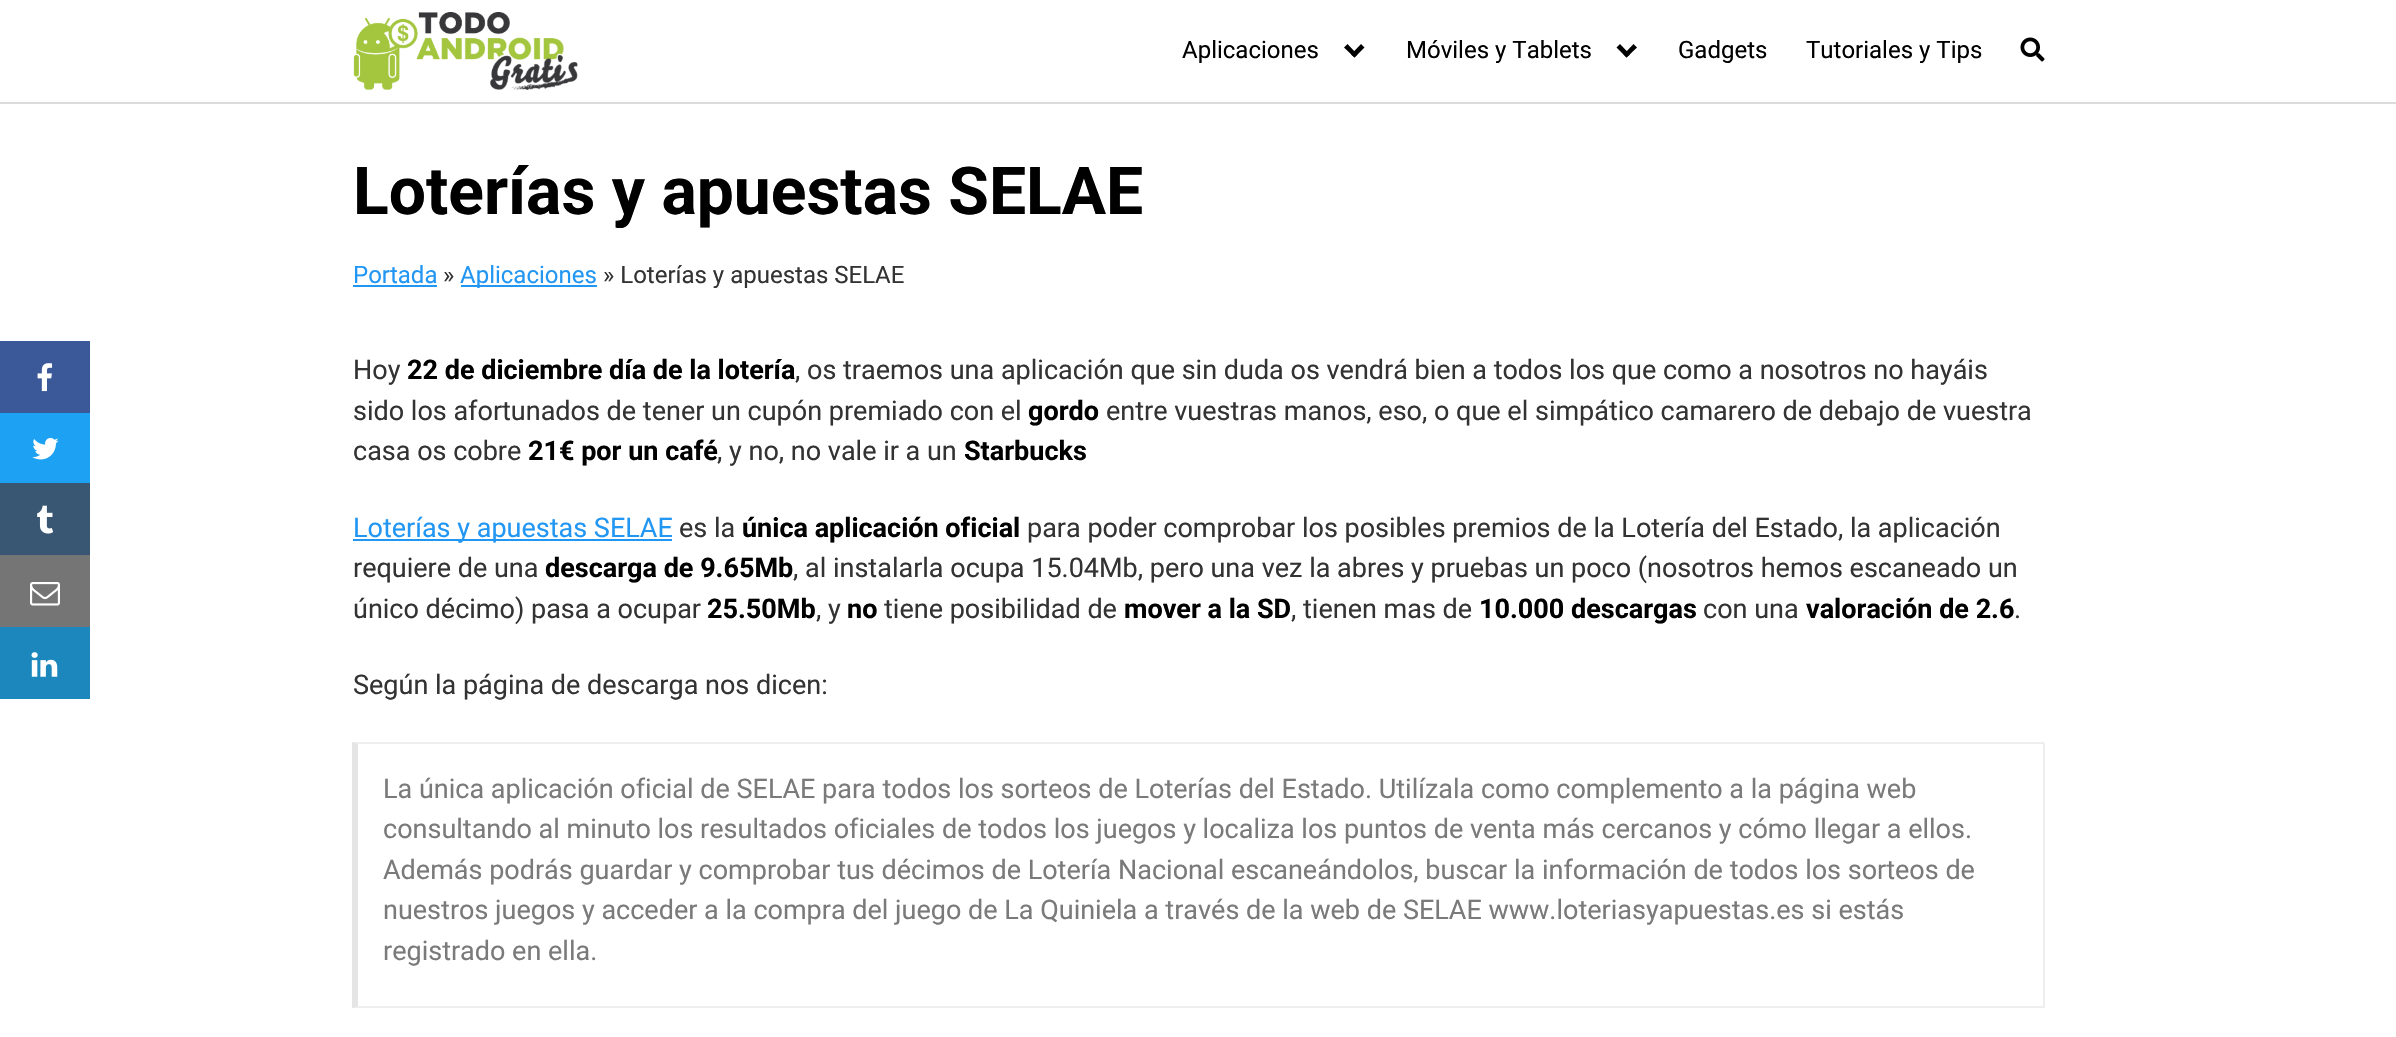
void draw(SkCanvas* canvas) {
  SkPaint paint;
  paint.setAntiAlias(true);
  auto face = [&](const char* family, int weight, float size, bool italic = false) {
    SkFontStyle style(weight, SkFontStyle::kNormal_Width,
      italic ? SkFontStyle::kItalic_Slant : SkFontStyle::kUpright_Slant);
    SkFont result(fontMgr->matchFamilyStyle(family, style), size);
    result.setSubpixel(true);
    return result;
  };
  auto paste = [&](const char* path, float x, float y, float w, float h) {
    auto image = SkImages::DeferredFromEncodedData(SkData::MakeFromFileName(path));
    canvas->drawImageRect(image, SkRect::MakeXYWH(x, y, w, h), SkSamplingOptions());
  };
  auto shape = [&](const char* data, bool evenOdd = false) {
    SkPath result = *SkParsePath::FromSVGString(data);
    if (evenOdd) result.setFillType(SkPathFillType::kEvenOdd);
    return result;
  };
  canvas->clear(0xffffffff);
  paint.setColor(0xffdbdbdb);
  canvas->drawRect(SkRect::MakeXYWH(0, 102, 2396, 2), paint);
  paste("img/1.png", 353, 12, 225, 78);
  paint.setColor(0xff000000);
  canvas->drawPath(shape("M1344 47.5L1347.5 44L1357.5 54.5L1354.5 57.5Z"), paint);
  canvas->drawPath(shape("M1351 54.5L1361 44L1364.5 47.5L1354.5 57.5Z"), paint);
  canvas->drawPath(shape("M1616.5 47.5L1620 44L1630 54.5L1626.5 57.5Z"), paint);
  canvas->drawPath(shape("M1623.5 54.5L1633.5 44L1637 47.5L1626.5 57.5Z"), paint);
  paste("img/2.png", 2020, 37, 25, 25);
  paint.setColor(0xff3b5998);
  canvas->drawRect(SkRect::MakeXYWH(0, 341, 90, 72), paint);
  paste("img/3.png", 37, 363, 16, 29);
  paint.setColor(0xff1da1f2);
  canvas->drawRect(SkRect::MakeXYWH(0, 413, 90, 70), paint);
  paste("img/4.png", 32, 438, 27, 22);
  paint.setColor(0xff395773);
  canvas->drawRect(SkRect::MakeXYWH(0, 483, 90, 72), paint);
  paste("img/5.png", 37, 505, 17, 29);
  paint.setColor(0xff757575);
  canvas->drawRect(SkRect::MakeXYWH(0, 555, 90, 72), paint);
  paste("img/6.png", 30, 582, 30, 24);
  paint.setColor(0xff1c87bd);
  canvas->drawRect(SkRect::MakeXYWH(0, 627, 90, 72), paint);
  paste("img/7.png", 31, 652, 27, 25);
  {
    const struct { float x, y, w, h; SkColor color; } items[] = {
      {353, 285, 84, 2, 0xff2196f3},
      {461, 285, 136, 2, 0xff2196f3},
      {353, 539, 319, 2, 0xff2196f3},
    };
    for (auto [x, y, w, h, color] : items) {
      paint.setColor(color);
      canvas->drawRect(SkRect::MakeXYWH(x, y, w, h), paint);
    }
  }
  paint.setColor(0xffeeeeee);
  canvas->drawPath(shape("M352 742H2044L2043 744H358Z"), paint);
  canvas->drawRect(SkRect::MakeXYWH(2043, 743, 2, 265), paint);
  canvas->drawPath(shape("M2044 1008H352L358 1006H2043Z"), paint);
  paint.setColor(0x1a000000);
  canvas->drawPath(shape("M352 1008V742L358 744V1006Z"), paint);
  auto f0 = face("Roboto", 400, 24);
  paint.setColor(0xff000000);
  {
    const struct { const char* s; float x, y; } items[] = {
      {"Aplicaciones", 1182, 58},
      {"Móviles y Tablets", 1406, 58},
      {"Gadgets", 1678, 58},
      {"Tutoriales y Tips", 1806, 58},
    };
    for (auto [s, x, y] : items) {
      canvas->drawString(s, x, y, f0, paint);
    }
  }
  auto f1 = face("Roboto", 700, 66);
  canvas->drawString("Loterías y apuestas SELAE", 353, 214, f1, paint);
  paint.setColor(0xff2196f3);
  canvas->drawString("Portada", 353, 283, f0, paint);
  paint.setColor(0xff333333);
  canvas->drawString("»", 443, 283, f0, paint);
  paint.setColor(0xff2196f3);
  canvas->drawString("Aplicaciones", 460, 283, f0, paint);
  paint.setColor(0xff333333);
  canvas->drawString("» Loterías y apuestas SELAE", 603, 283, f0, paint);
  auto f2 = face("Roboto", 400, 27);
  canvas->drawString("Hoy", 353, 379, f2, paint);
  auto f3 = face("Roboto", 700, 27);
  paint.setColor(0xff000000);
  canvas->drawString("22 de diciembre día de la lotería", 407, 379, f3, paint);
  paint.setColor(0xff333333);
  canvas->drawString(", os traemos una aplicación que sin duda os vendrá bien a todos los que como a nosotros no hayáis", 795, 379, f2, paint);
  canvas->drawString("sido los afortunados de tener un cupón premiado con el", 353, 420, f2, paint);
  paint.setColor(0xff000000);
  canvas->drawString("gordo", 1028, 420, f3, paint);
  paint.setColor(0xff333333);
  canvas->drawString("entre vuestras manos, eso, o que el simpático camarero de debajo de vuestra", 1106, 420, f2, paint);
  canvas->drawString("casa os cobre", 353, 460, f2, paint);
  paint.setColor(0xff000000);
  canvas->drawString("21€ por un café", 528, 460, f3, paint);
  paint.setColor(0xff333333);
  canvas->drawString(", y no, no vale ir a un", 717, 460, f2, paint);
  paint.setColor(0xff000000);
  canvas->drawString("Starbucks", 964, 460, f3, paint);
  paint.setColor(0xff2196f3);
  canvas->drawString("Loterías y apuestas SELAE", 353, 537, f2, paint);
  paint.setColor(0xff333333);
  canvas->drawString("es la", 679, 537, f2, paint);
  paint.setColor(0xff000000);
  canvas->drawString("única aplicación oficial", 742, 537, f3, paint);
  paint.setColor(0xff333333);
  canvas->drawString("para poder comprobar los posibles premios de la Lotería del Estado, la aplicación", 1027, 537, f2, paint);
  canvas->drawString("requiere de una", 353, 577, f2, paint);
  paint.setColor(0xff000000);
  canvas->drawString("descarga de 9.65Mb", 545, 577, f3, paint);
  paint.setColor(0xff333333);
  canvas->drawString(", al instalarla ocupa 15.04Mb, pero una vez la abres y pruebas un poco (nosotros hemos escaneado un", 793, 577, f2, paint);
  canvas->drawString("único décimo) pasa a ocupar", 353, 618, f2, paint);
  paint.setColor(0xff000000);
  canvas->drawString("25.50Mb", 707, 618, f3, paint);
  paint.setColor(0xff333333);
  canvas->drawString(", y", 816, 618, f2, paint);
  paint.setColor(0xff000000);
  canvas->drawString("no", 847, 618, f3, paint);
  paint.setColor(0xff333333);
  canvas->drawString("tiene posibilidad de", 884, 618, f2, paint);
  paint.setColor(0xff000000);
  canvas->drawString("mover a la SD", 1124, 618, f3, paint);
  paint.setColor(0xff333333);
  canvas->drawString(", tienen mas de", 1291, 618, f2, paint);
  paint.setColor(0xff000000);
  canvas->drawString("10.000 descargas", 1479, 618, f3, paint);
  paint.setColor(0xff333333);
  canvas->drawString("con una", 1703, 618, f2, paint);
  paint.setColor(0xff000000);
  canvas->drawString("valoración de 2.6", 1806, 618, f3, paint);
  paint.setColor(0xff333333);
  canvas->drawString(".", 2014, 618, f2, paint);
  canvas->drawString("Según la página de descarga nos dicen:", 353, 694, f2, paint);
  paint.setColor(0xff7a7a7a);
  {
    const struct { const char* s; float x, y; } items[] = {
      {"La única aplicación oficial de SELAE para todos los sorteos de Loterías del Estado. Utilízala como complemento a la página web", 383, 798},
      {"consultando al minuto los resultados oficiales de todos los juegos y localiza los puntos de venta más cercanos y cómo llegar a ellos.", 383, 838},
      {"Además podrás guardar y comprobar tus décimos de Lotería Nacional escaneándolos, buscar la información de todos los sorteos de", 383, 879},
      {"nuestros juegos y acceder a la compra del juego de La Quiniela a través de la web de SELAE www.loteriasyapuestas.es si estás", 383, 919},
      {"registrado en ella.", 383, 960},
    };
    for (auto [s, x, y] : items) {
      canvas->drawString(s, x, y, f2, paint);
    }
  }
}
